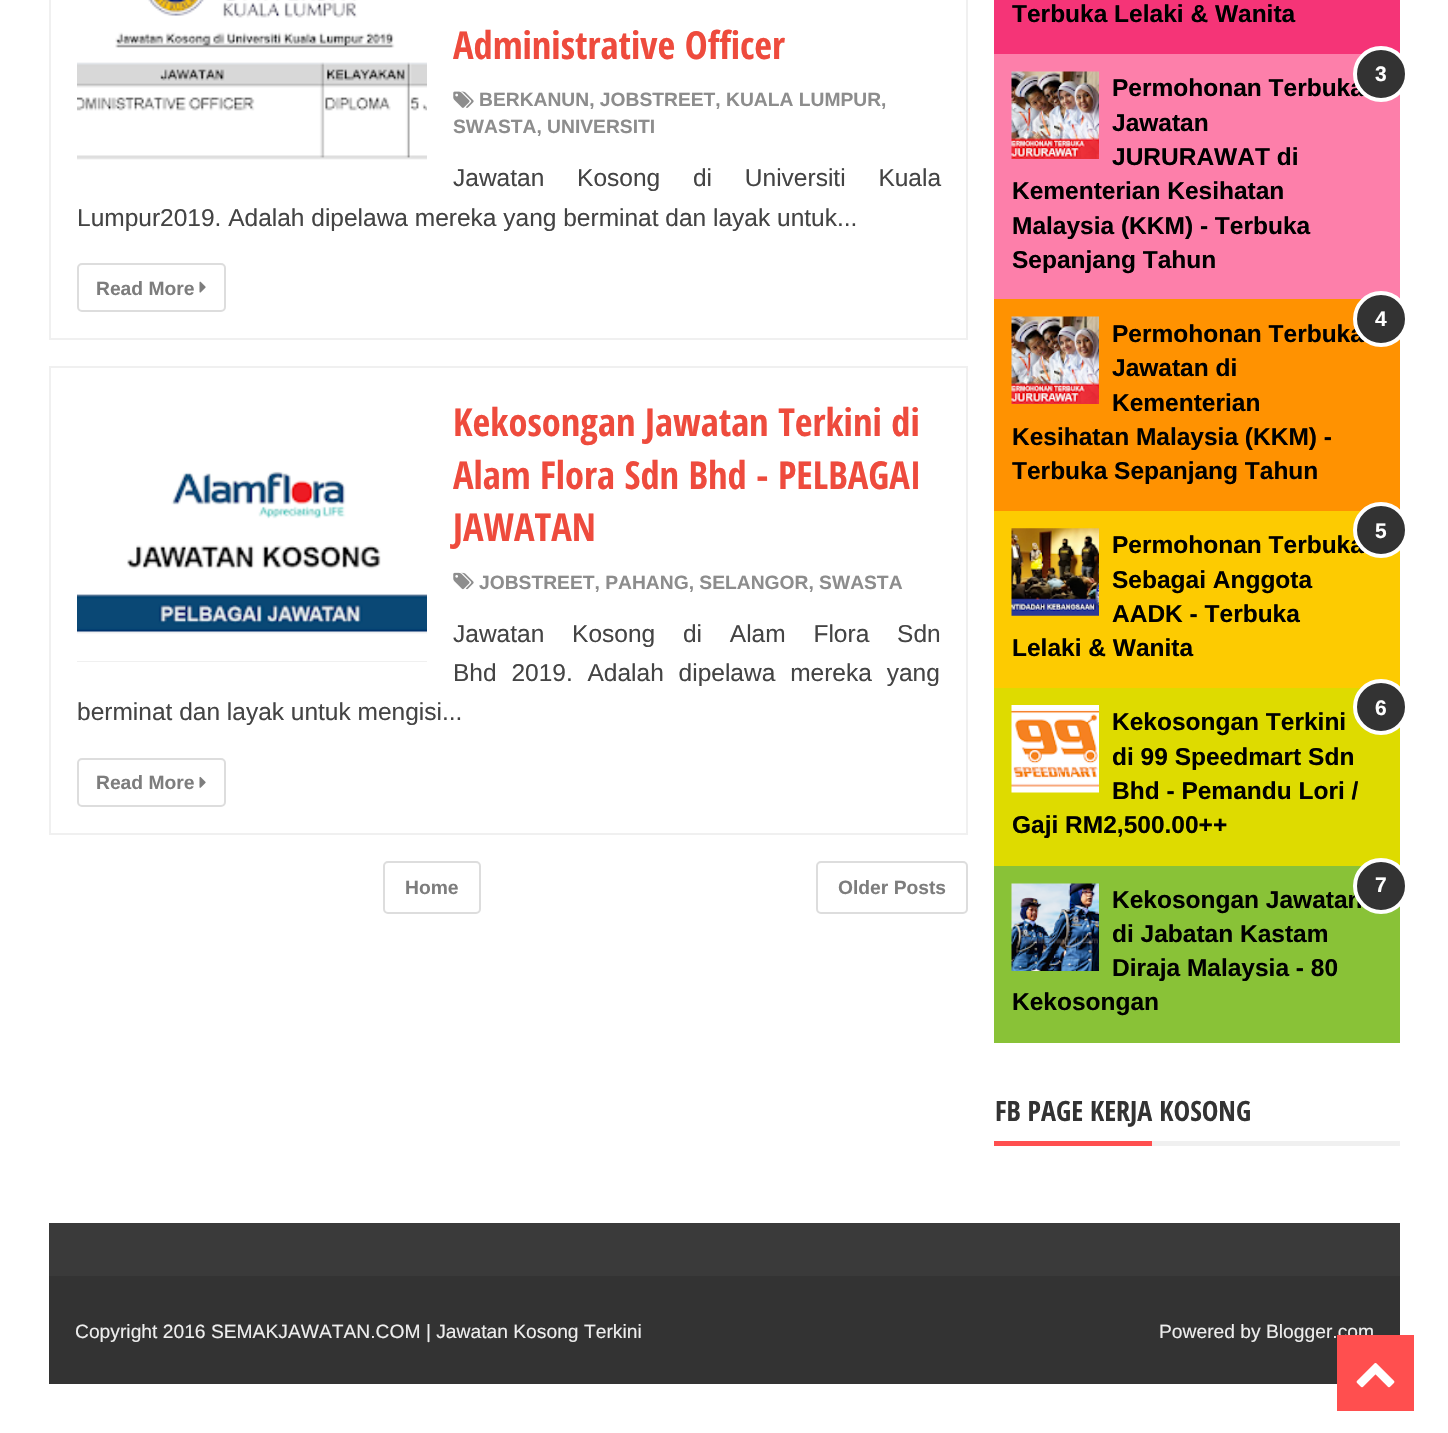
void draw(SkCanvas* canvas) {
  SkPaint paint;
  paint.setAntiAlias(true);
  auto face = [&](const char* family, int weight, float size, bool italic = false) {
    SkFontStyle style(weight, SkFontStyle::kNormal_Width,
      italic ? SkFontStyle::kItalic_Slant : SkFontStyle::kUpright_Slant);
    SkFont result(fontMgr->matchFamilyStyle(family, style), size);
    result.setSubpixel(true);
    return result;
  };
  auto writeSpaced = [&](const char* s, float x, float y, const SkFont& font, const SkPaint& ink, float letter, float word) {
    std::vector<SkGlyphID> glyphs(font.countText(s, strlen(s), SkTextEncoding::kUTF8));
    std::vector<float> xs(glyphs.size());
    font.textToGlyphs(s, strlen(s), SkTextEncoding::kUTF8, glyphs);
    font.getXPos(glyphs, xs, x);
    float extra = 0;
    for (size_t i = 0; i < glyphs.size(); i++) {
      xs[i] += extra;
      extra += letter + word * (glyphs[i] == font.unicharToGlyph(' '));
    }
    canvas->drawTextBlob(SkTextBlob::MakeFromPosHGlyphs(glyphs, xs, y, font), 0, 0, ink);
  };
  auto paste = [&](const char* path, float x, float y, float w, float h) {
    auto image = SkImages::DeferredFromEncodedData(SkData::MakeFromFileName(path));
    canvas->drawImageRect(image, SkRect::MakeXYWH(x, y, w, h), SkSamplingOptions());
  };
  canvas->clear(0xffffffff);
  paint.setStroke(true);
  paint.setStrokeWidth(2);
  paint.setColor(0xfff0f0f0);
  canvas->drawRect(SkRect::MakeXYWH(50, -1, 917, 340), paint);
  paste("img/1.png", 77, 0, 350, 180);
  paste("img/2.png", 453, 91, 21, 17);
  paint.setColor(0xffdddddd);
  canvas->drawRoundRect(SkRect::MakeXYWH(78, 264, 147, 47), 4, 4, paint);
  paste("img/3.png", 199, 281, 7, 12);
  paint.setColor(0xfff0f0f0);
  canvas->drawRect(SkRect::MakeXYWH(50, 367, 917, 467), paint);
  paint.setStroke(false);
  canvas->drawRect(SkRect::MakeXYWH(77, 661, 350, 1), paint);
  paste("img/4.png", 77, 399, 350, 262);
  paste("img/5.png", 453, 572, 21, 18);
  paint.setStroke(true);
  paint.setColor(0xffdddddd);
  canvas->drawRoundRect(SkRect::MakeXYWH(78, 759, 147, 47), 4, 4, paint);
  paste("img/6.png", 199, 776, 7, 12);
  canvas->drawRoundRect(SkRect::MakeXYWH(384, 862, 96, 51), 4, 4, paint);
  canvas->drawRoundRect(SkRect::MakeXYWH(817, 862, 150, 51), 4, 4, paint);
  paint.setStroke(false);
  paint.setColor(0xfff53477);
  canvas->drawRect(SkRect::MakeXYWH(994, 0, 406, 54), paint);
  paint.setColor(0xfffd7faa);
  canvas->drawRect(SkRect::MakeXYWH(994, 54, 406, 245), paint);
  paste("img/7.png", 1011, 71, 88, 88);
  paint.setColor(0xffff9201);
  canvas->drawRect(SkRect::MakeXYWH(994, 299, 406, 212), paint);
  paste("img/8.png", 1011, 316, 88, 88);
  paint.setColor(0xfffdcb01);
  canvas->drawRect(SkRect::MakeXYWH(994, 511, 406, 177), paint);
  paste("img/9.png", 1011, 528, 88, 88);
  paint.setColor(0xffdedb00);
  canvas->drawRect(SkRect::MakeXYWH(994, 688, 406, 178), paint);
  paint.setColor(0xff333333);
  canvas->drawCircle(1381, 707, 26, paint);
  paint.setStroke(true);
  paint.setStrokeWidth(4);
  paint.setColor(0xffffffff);
  canvas->drawCircle(1381, 707, 26, paint);
  paste("img/10.png", 1011, 705, 88, 88);
  paint.setStroke(false);
  paint.setColor(0xff89c237);
  canvas->drawRect(SkRect::MakeXYWH(994, 866, 406, 177), paint);
  paste("img/11.png", 1011, 883, 88, 88);
  {
    const struct { float x, y, w, h; SkColor color; } items[] = {
      {1152, 1141, 248, 5, 0xfff0f0f0},
      {994, 1141, 158, 5, 0xffff4f4f},
      {49, 1223, 1351, 53, 0xff3a3a3a},
      {49, 1276, 1351, 108, 0xff333333},
    };
    for (auto [x, y, w, h, color] : items) {
      paint.setColor(color);
      canvas->drawRect(SkRect::MakeXYWH(x, y, w, h), paint);
    }
  }
  auto f0 = face("Open Sans Condensed", 700, 38.5f);
  paint.setColor(0xffee4b3d);
  canvas->drawString("Administrative Officer", 453, 59, f0, paint);
  auto f1 = face("Liberation Sans", 700, 19.25f);
  paint.setColor(0xff8d8d8d);
  canvas->drawString("BERKANUN, JOBSTREET, KUALA LUMPUR,", 479, 106, f1, paint);
  canvas->drawString("SWASTA, UNIVERSITI", 453, 133, f1, paint);
  auto f2 = face("Liberation Sans", 400, 24.5f);
  paint.setColor(0xff444444);
  writeSpaced("Jawatan Kosong di Universiti Kuala", 453, 186, f2, paint, 0, 26);
  canvas->drawString("Lumpur2019. Adalah dipelawa mereka yang berminat dan layak untuk...", 77, 226, f2, paint);
  paint.setColor(0xff7d7d7d);
  canvas->drawString("Read More", 96, 295, f1, paint);
  paint.setColor(0xffee4b3d);
  {
    const struct { const char* s; float x, y; } items[] = {
      {"Kekosongan Jawatan Terkini di", 453, 436},
      {"Alam Flora Sdn Bhd - PELBAGAI", 453, 489},
      {"JAWATAN", 453, 541},
    };
    for (auto [s, x, y] : items) {
      canvas->drawString(s, x, y, f0, paint);
    }
  }
  paint.setColor(0xff8d8d8d);
  canvas->drawString("JOBSTREET, PAHANG, SELANGOR, SWASTA", 479, 589, f1, paint);
  paint.setColor(0xff444444);
  writeSpaced("Jawatan Kosong di Alam Flora Sdn", 453, 642, f2, paint, 0, 21);
  writeSpaced("Bhd 2019. Adalah dipelawa mereka yang", 453, 681, f2, paint, 0, 8);
  canvas->drawString("berminat dan layak untuk mengisi...", 77, 720, f2, paint);
  paint.setColor(0xff7d7d7d);
  {
    const struct { const char* s; float x, y; } items[] = {
      {"Read More", 96, 789},
      {"Home", 405, 894},
      {"Older Posts", 838, 894},
    };
    for (auto [s, x, y] : items) {
      canvas->drawString(s, x, y, f1, paint);
    }
  }
  auto f3 = face("Liberation Sans", 700, 24.5f);
  paint.setColor(0xff000000);
  canvas->drawString("Terbuka Lelaki & Wanita", 1012, 22, f3, paint);
  canvas->drawString("Permohonan Terbuka", 1112, 96, f3, paint);
  paint.setColor(0xff333333);
  canvas->drawCircle(1381, 74, 26, paint);
  paint.setStroke(true);
  paint.setColor(0xffffffff);
  canvas->drawCircle(1381, 74, 26, paint);
  auto f4 = face("Liberation Sans", 700, 21);
  paint.setStroke(false);
  canvas->drawString("3", 1375, 81, f4, paint);
  paint.setColor(0xff000000);
  {
    const struct { const char* s; float x, y; } items[] = {
      {"Jawatan", 1112, 131},
      {"JURURAWAT di", 1112, 165},
      {"Kementerian Kesihatan", 1012, 199},
      {"Malaysia (KKM) - Terbuka", 1012, 234},
      {"Sepanjang Tahun", 1012, 268},
      {"Permohonan Terbuka", 1112, 342},
    };
    for (auto [s, x, y] : items) {
      canvas->drawString(s, x, y, f3, paint);
    }
  }
  paint.setColor(0xff333333);
  canvas->drawCircle(1381, 319, 26, paint);
  paint.setStroke(true);
  paint.setColor(0xffffffff);
  canvas->drawCircle(1381, 319, 26, paint);
  paint.setStroke(false);
  canvas->drawString("4", 1375, 326, f4, paint);
  paint.setColor(0xff000000);
  {
    const struct { const char* s; float x, y; } items[] = {
      {"Jawatan di", 1112, 376},
      {"Kementerian", 1112, 411},
      {"Kesihatan Malaysia (KKM) -", 1012, 445},
      {"Terbuka Sepanjang Tahun", 1012, 479},
      {"Permohonan Terbuka", 1112, 553},
    };
    for (auto [s, x, y] : items) {
      canvas->drawString(s, x, y, f3, paint);
    }
  }
  paint.setColor(0xff333333);
  canvas->drawCircle(1381, 530, 26, paint);
  paint.setStroke(true);
  paint.setColor(0xffffffff);
  canvas->drawCircle(1381, 530, 26, paint);
  paint.setStroke(false);
  canvas->drawString("5", 1375, 538, f4, paint);
  paint.setColor(0xff000000);
  {
    const struct { const char* s; float x, y; } items[] = {
      {"Sebagai Anggota", 1112, 588},
      {"AADK - Terbuka", 1112, 622},
      {"Lelaki & Wanita", 1012, 656},
    };
    for (auto [s, x, y] : items) {
      canvas->drawString(s, x, y, f3, paint);
    }
  }
  paint.setColor(0xffffffff);
  canvas->drawString("6", 1375, 715, f4, paint);
  paint.setColor(0xff000000);
  {
    const struct { const char* s; float x, y; } items[] = {
      {"Kekosongan Terkini", 1112, 730},
      {"di 99 Speedmart Sdn", 1112, 765},
      {"Bhd - Pemandu Lori /", 1112, 799},
      {"Gaji RM2,500.00++", 1012, 833},
      {"Kekosongan Jawatan", 1112, 908},
    };
    for (auto [s, x, y] : items) {
      canvas->drawString(s, x, y, f3, paint);
    }
  }
  paint.setColor(0xff333333);
  canvas->drawCircle(1381, 886, 26, paint);
  paint.setStroke(true);
  paint.setColor(0xffffffff);
  canvas->drawCircle(1381, 886, 26, paint);
  paint.setStroke(false);
  canvas->drawString("7", 1375, 892, f4, paint);
  paint.setColor(0xff000000);
  {
    const struct { const char* s; float x, y; } items[] = {
      {"di Jabatan Kastam", 1112, 942},
      {"Diraja Malaysia - 80", 1112, 976},
      {"Kekosongan", 1012, 1010},
    };
    for (auto [s, x, y] : items) {
      canvas->drawString(s, x, y, f3, paint);
    }
  }
  auto f5 = face("Open Sans Condensed", 700, 28);
  paint.setColor(0xff333333);
  canvas->drawString("FB PAGE KERJA KOSONG", 995, 1121, f5, paint);
  auto f6 = face("Liberation Sans", 400, 19.25f);
  paint.setColor(0xffeeeeee);
  canvas->drawString("Copyright 2016 SEMAKJAWATAN.COM | Jawatan Kosong Terkini", 75, 1338, f6, paint);
  canvas->drawString("Powered by Blogger.com", 1159, 1338, f6, paint);
  paint.setColor(0xffff4f4f);
  canvas->drawRect(SkRect::MakeXYWH(1337, 1335, 77, 76), paint);
  paste("img/12.png", 1356, 1363, 39, 25);
}
